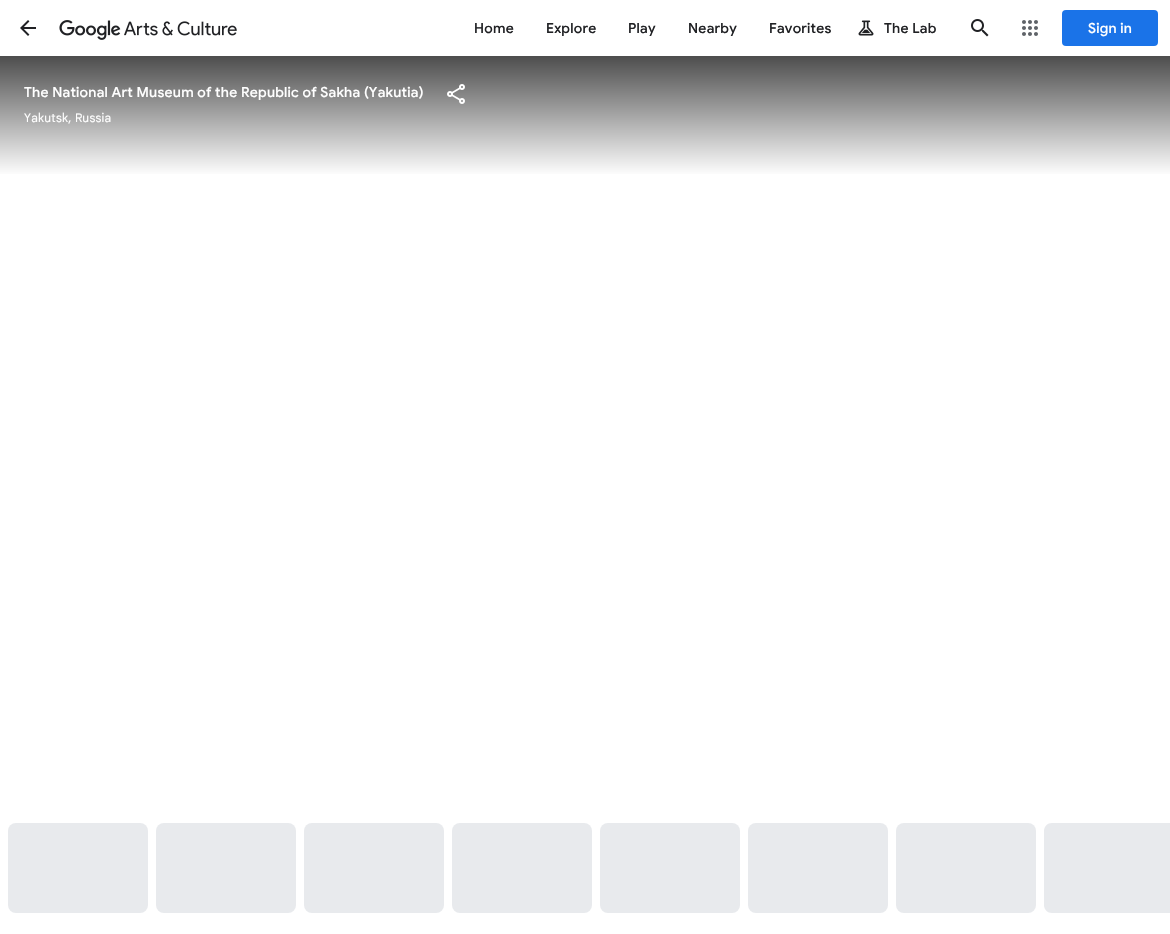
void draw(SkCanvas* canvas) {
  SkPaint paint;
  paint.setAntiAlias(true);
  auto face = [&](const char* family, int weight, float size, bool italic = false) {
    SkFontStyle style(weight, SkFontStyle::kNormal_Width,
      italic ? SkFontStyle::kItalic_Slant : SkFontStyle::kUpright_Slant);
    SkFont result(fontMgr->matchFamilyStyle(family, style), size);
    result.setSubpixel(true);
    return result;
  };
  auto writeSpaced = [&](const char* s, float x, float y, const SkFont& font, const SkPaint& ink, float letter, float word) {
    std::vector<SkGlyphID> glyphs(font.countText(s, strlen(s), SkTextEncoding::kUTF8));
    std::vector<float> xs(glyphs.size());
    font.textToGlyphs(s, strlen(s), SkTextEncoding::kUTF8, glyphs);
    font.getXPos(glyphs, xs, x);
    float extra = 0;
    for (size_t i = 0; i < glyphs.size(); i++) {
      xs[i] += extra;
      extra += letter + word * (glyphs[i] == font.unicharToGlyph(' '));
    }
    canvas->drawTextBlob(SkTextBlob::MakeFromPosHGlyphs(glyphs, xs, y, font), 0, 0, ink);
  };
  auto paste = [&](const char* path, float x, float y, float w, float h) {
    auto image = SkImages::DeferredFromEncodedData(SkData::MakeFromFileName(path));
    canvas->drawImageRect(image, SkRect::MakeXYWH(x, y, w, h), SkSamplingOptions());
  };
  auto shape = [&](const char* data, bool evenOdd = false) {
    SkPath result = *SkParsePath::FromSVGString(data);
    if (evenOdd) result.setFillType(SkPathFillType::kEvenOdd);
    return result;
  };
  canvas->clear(0xffffffff);
  paste("img/1.png", 20, 20, 16, 16);
  paste("img/2.png", 59, 20, 178, 20);
  paste("img/3.png", 858, 20, 16, 16);
  paste("img/4.png", 971, 19, 18, 18);
  paste("img/5.png", 1022, 20, 16, 16);
  paint.setColor(0xff1a73e8);
  canvas->drawRoundRect(SkRect::MakeXYWH(1062, 10, 96, 36), 4, 4, paint);
  {
    const SkColor colors[] = {0xff4d4d4d, 0xffffffff};
    const float stops[] = {0, 1};
    const SkPoint ends[] = {{585, 56}, {585, 176}};
    paint.setShader(SkGradientShader::MakeLinear(ends, colors, stops, 2, SkTileMode::kClamp));
    paint.setAlpha(255);
  }
  canvas->drawRect(SkRect::MakeXYWH(0, 56, 1170, 118), paint);
  paste("img/6.png", 447, 84, 18, 20);
  paint.setShader(nullptr);
  paint.setColor(0xffe8eaed);
  canvas->drawRoundRect(SkRect::MakeXYWH(8, 823, 140, 90), 8, 8, paint);
  canvas->drawRoundRect(SkRect::MakeXYWH(156, 823, 140, 90), 8, 8, paint);
  canvas->drawRoundRect(SkRect::MakeXYWH(304, 823, 140, 90), 8, 8, paint);
  canvas->drawRoundRect(SkRect::MakeXYWH(452, 823, 140, 90), 8, 8, paint);
  canvas->drawRoundRect(SkRect::MakeXYWH(600, 823, 140, 90), 8, 8, paint);
  canvas->drawRoundRect(SkRect::MakeXYWH(748, 823, 140, 90), 8, 8, paint);
  canvas->drawRoundRect(SkRect::MakeXYWH(896, 823, 140, 90), 8, 8, paint);
  canvas->drawPath(shape("M1052 823H1170V913H1052C1047.5 913 1044 909.5 1044 905V831C1044 826.5 1047.5 823 1052 823Z"), paint);
  auto f0 = face("Google Sans", 500, 14);
  paint.setColor(0xff202124);
  {
    const struct { const char* s; float x, y; } items[] = {
      {"Home", 474, 33},
      {"Explore", 546, 33},
      {"Play", 628, 33},
      {"Nearby", 688, 33},
      {"Favorites", 769, 33},
      {"The Lab", 884, 33},
    };
    for (auto [s, x, y] : items) {
      writeSpaced(s, x, y, f0, paint, 0.25f, 0);
    }
  }
  paint.setColor(0xffffffff);
  writeSpaced("Sign in", 1088, 33, f0, paint, 0.25f, 0);
  writeSpaced("The National Art Museum of the Republic of Sakha (Yakutia)", 24, 97, f0, paint, 0.25f, 0);
  auto f1 = face("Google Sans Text", 400, 12);
  writeSpaced("Yakutsk, Russia", 24, 122, f1, paint, 0.25f, 0);
}
